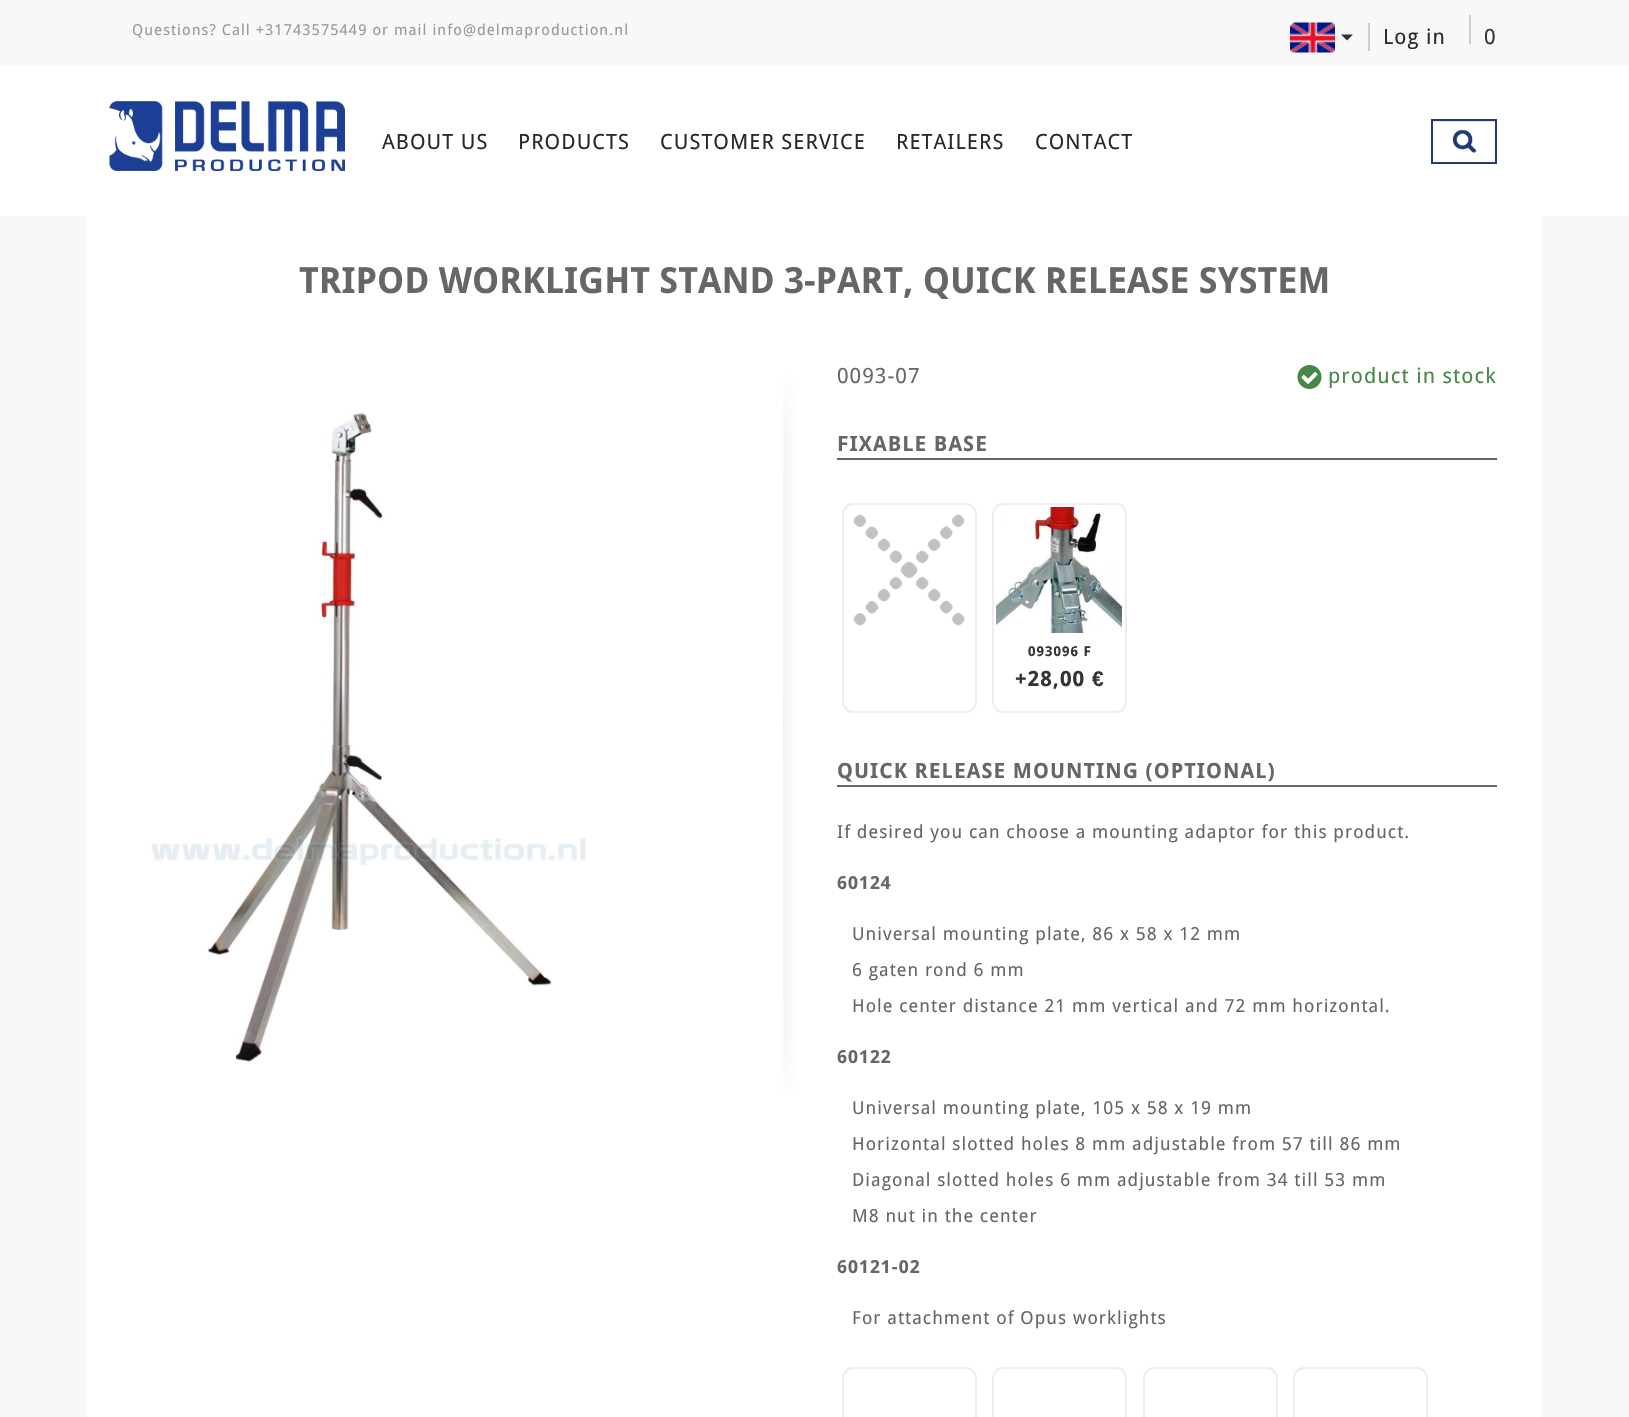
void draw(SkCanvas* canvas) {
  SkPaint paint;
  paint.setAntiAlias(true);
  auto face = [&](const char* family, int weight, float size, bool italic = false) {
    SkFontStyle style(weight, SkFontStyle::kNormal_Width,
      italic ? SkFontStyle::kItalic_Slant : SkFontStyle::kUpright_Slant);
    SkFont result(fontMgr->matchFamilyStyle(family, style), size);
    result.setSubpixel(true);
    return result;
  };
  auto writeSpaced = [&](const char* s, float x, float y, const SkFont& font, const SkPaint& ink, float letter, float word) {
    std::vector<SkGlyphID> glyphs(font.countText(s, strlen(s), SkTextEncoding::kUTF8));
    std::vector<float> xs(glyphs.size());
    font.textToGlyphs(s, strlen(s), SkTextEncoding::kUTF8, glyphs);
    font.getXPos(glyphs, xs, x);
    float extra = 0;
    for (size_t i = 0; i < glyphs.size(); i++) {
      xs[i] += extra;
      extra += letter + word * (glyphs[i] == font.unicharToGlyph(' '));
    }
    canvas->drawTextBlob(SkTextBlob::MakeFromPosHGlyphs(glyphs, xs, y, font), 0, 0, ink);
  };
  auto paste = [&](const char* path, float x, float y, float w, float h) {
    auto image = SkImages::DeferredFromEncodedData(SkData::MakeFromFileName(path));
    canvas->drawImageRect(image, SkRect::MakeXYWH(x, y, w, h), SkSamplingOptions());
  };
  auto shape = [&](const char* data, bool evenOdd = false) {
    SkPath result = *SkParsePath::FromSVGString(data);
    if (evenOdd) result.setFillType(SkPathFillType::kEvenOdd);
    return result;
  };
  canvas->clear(0xfff8f8f8);
  paint.setColor(0xffcccccc);
  canvas->drawRect(SkRect::MakeXYWH(1368, 23, 2, 28), paint);
  paste("img/1.png", 1290, 22, 45, 31);
  paint.setColor(0xff333333);
  canvas->drawPath(shape("M1341 34.5H1353L1347 40.5Z"), paint);
  paint.setColor(0xffcccccc);
  canvas->drawRect(SkRect::MakeXYWH(1469, 15, 2, 29), paint);
  paint.setColor(0xffffffff);
  canvas->drawRect(SkRect::MakeXYWH(0, 66, 1629, 150), paint);
  paste("img/2.png", 109, 101, 236, 70);
  paste("img/3.png", 1438, 121, 57, 41);
  paint.setColor(0x12000000);
  canvas->drawRect(SkRect::MakeXYWH(1433, 121, 63, 1), paint);
  paint.setStroke(true);
  paint.setStrokeWidth(2);
  paint.setColor(0xff1d3c72);
  canvas->drawRect(SkRect::MakeXYWH(1432, 120, 64, 43), paint);
  paint.setStroke(false);
  paint.setColor(0xffffffff);
  canvas->drawRect(SkRect::MakeXYWH(87, 216, 1455, 1201), paint);
  paste("img/4.png", 783, 375, 13, 721);
  paste("img/5.png", 151, 412, 435, 650);
  paste("img/6.png", 1297, 365, 25, 24);
  paint.setColor(0xff666666);
  canvas->drawRect(SkRect::MakeXYWH(837, 458, 660, 2), paint);
  paint.setStroke(true);
  paint.setColor(0xffeeeeee);
  canvas->drawRoundRect(SkRect::MakeXYWH(843, 504, 133, 208), 10, 10, paint);
  paste("img/7.png", 853, 514, 112, 112);
  canvas->drawRoundRect(SkRect::MakeXYWH(993, 504, 133, 208), 10, 10, paint);
  paste("img/8.png", 996, 507, 126, 126);
  paint.setStroke(false);
  paint.setColor(0xff666666);
  canvas->drawRect(SkRect::MakeXYWH(837, 785, 660, 2), paint);
  paint.setStroke(true);
  paint.setColor(0xffeeeeee);
  canvas->drawRoundRect(SkRect::MakeXYWH(843, 1368, 133, 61), 10, 10, paint);
  canvas->drawRoundRect(SkRect::MakeXYWH(993, 1368, 133, 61), 10, 10, paint);
  canvas->drawRoundRect(SkRect::MakeXYWH(1144, 1368, 133, 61), 10, 10, paint);
  canvas->drawRoundRect(SkRect::MakeXYWH(1294, 1368, 133, 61), 10, 10, paint);
  auto f0 = face("Droid Sans", 400, 15);
  paint.setStroke(false);
  paint.setColor(0xff999999);
  writeSpaced("Questions? Call +31743575449 or mail info@delmaproduction.nl", 132, 35, f0, paint, 1.05f, 0);
  auto f1 = face("Droid Sans", 400, 21);
  paint.setColor(0xff292929);
  writeSpaced("Log in", 1383, 44, f1, paint, 1.05f, 0);
  paint.setColor(0xff333333);
  writeSpaced("0", 1484, 44, f1, paint, 1.05f, 0);
  paint.setColor(0xff292929);
  {
    const struct { const char* s; float x, y; } items[] = {
      {"ABOUT US", 382, 149},
      {"PRODUCTS", 518, 149},
      {"CUSTOMER SERVICE", 660, 149},
      {"RETAILERS", 896, 149},
      {"CONTACT", 1035, 149},
    };
    for (auto [s, x, y] : items) {
      writeSpaced(s, x, y, f1, paint, 1.05f, 0);
    }
  }
  auto f2 = face("Droid Sans", 700, 36);
  paint.setColor(0xff666666);
  canvas->drawString("TRIPOD WORKLIGHT STAND 3-PART, QUICK RELEASE SYSTEM", 299, 293, f2, paint);
  writeSpaced("0093-07", 837, 383, f1, paint, 1.05f, 0);
  paint.setColor(0xff468847);
  writeSpaced("product in stock", 1328, 383, f1, paint, 1.05f, 0);
  auto f3 = face("Droid Sans", 700, 21);
  paint.setColor(0xff666666);
  writeSpaced("FIXABLE BASE", 837, 451, f3, paint, 1.05f, 0);
  auto f4 = face("Droid Sans", 700, 13.5f);
  paint.setColor(0xff333333);
  writeSpaced("093096 F", 1028, 656, f4, paint, 1.05f, 0);
  writeSpaced("+28,00", 1015, 686, f3, paint, 1.05f, 0);
  auto f5 = face("Liberation Sans", 700, 21);
  writeSpaced("€", 1092, 686, f5, paint, 1.05f, 0);
  paint.setColor(0xff666666);
  writeSpaced("QUICK RELEASE MOUNTING (OPTIONAL)", 837, 778, f3, paint, 1.05f, 0);
  auto f6 = face("Droid Sans", 400, 18);
  writeSpaced("If desired you can choose a mounting adaptor for this product.", 837, 838, f6, paint, 1.05f, 0);
  auto f7 = face("Droid Sans", 700, 18);
  writeSpaced("60124", 837, 889, f7, paint, 1.05f, 0);
  {
    const struct { const char* s; float x, y; } items[] = {
      {"Universal mounting plate, 86 x 58 x 12 mm", 852, 940},
      {"6 gaten rond 6 mm", 852, 976},
      {"Hole center distance 21 mm vertical and 72 mm horizontal.", 852, 1012},
    };
    for (auto [s, x, y] : items) {
      writeSpaced(s, x, y, f6, paint, 1.05f, 0);
    }
  }
  writeSpaced("60122", 837, 1063, f7, paint, 1.05f, 0);
  {
    const struct { const char* s; float x, y; } items[] = {
      {"Universal mounting plate, 105 x 58 x 19 mm", 852, 1114},
      {"Horizontal slotted holes 8 mm adjustable from 57 till 86 mm", 852, 1150},
      {"Diagonal slotted holes 6 mm adjustable from 34 till 53 mm", 852, 1186},
      {"M8 nut in the center", 852, 1222},
    };
    for (auto [s, x, y] : items) {
      writeSpaced(s, x, y, f6, paint, 1.05f, 0);
    }
  }
  writeSpaced("60121-02", 837, 1273, f7, paint, 1.05f, 0);
  writeSpaced("For attachment of Opus worklights", 852, 1324, f6, paint, 1.05f, 0);
}
